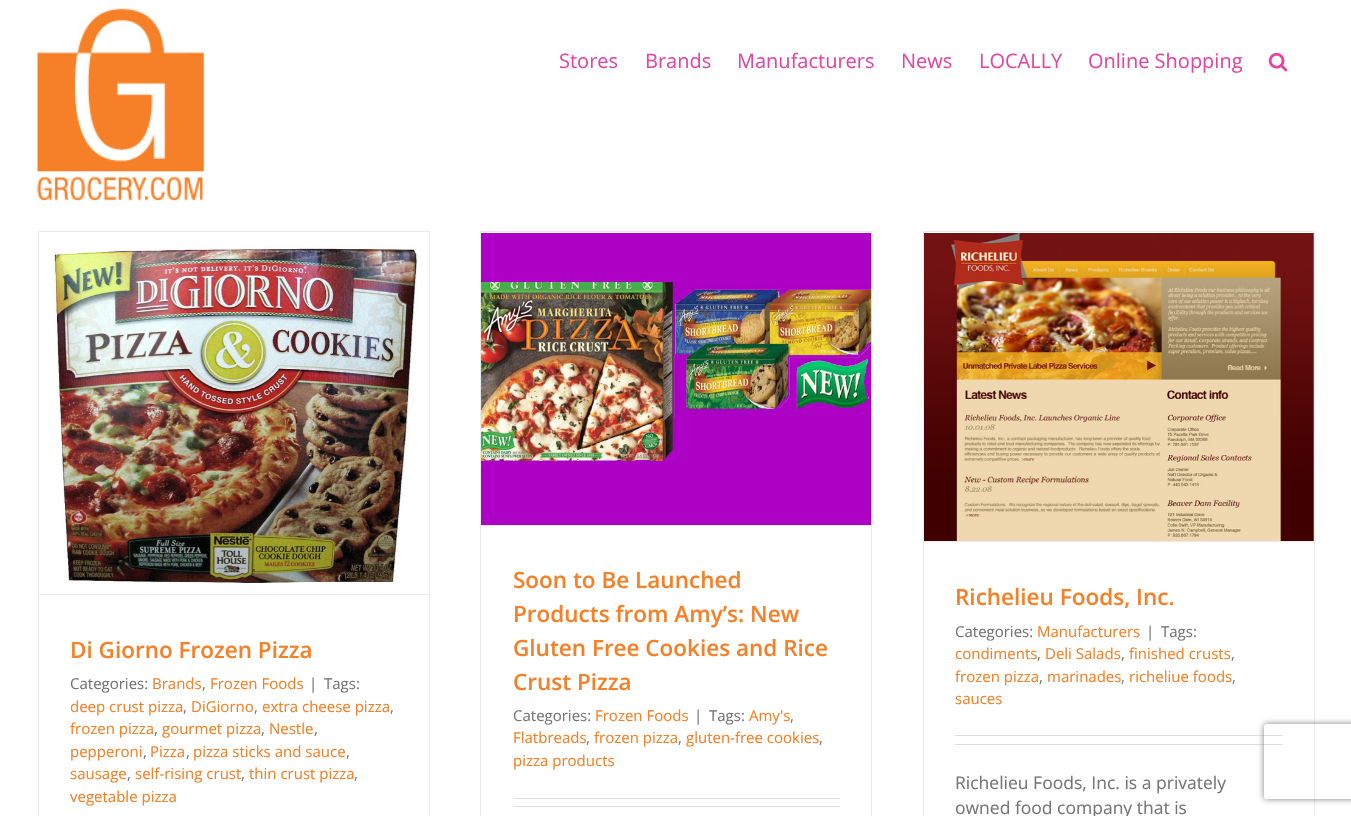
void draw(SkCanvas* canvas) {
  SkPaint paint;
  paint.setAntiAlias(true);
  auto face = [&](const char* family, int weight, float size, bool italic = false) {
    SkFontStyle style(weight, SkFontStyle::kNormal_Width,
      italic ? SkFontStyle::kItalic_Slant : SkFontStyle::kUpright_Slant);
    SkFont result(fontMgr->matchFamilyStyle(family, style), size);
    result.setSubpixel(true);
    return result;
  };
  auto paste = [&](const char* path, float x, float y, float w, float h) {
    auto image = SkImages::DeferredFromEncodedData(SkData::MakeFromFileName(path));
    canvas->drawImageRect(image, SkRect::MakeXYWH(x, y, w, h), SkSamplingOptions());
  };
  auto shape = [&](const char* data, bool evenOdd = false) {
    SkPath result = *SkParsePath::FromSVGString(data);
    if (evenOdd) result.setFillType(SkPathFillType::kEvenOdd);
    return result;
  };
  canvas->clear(0xffffffff);
  paste("img/1.png", 37, 0, 167, 201);
  paste("img/2.png", 1268, 52, 20, 20);
  {
    const struct { float x, y, w, h; SkColor color; } items[] = {
      {38, 231, 392, 1, 0xffebeaea},
      {429, 231, 1, 585, 0xffebeaea},
      {38, 231, 1, 585, 0xffebeaea},
      {39, 594, 390, 1, 0xffebeaea},
    };
    for (auto [x, y, w, h, color] : items) {
      paint.setColor(color);
      canvas->drawRect(SkRect::MakeXYWH(x, y, w, h), paint);
    }
  }
  paste("img/3.png", 53, 247, 365, 336);
  {
    const struct { float x, y, w, h; SkColor color; } items[] = {
      {480, 231, 393, 1, 0xffebeaea},
      {871, 231, 1, 585, 0xffebeaea},
      {480, 231, 1, 585, 0xffebeaea},
      {481, 525, 390, 1, 0xffebeaea},
    };
    for (auto [x, y, w, h, color] : items) {
      paint.setColor(color);
      canvas->drawRect(SkRect::MakeXYWH(x, y, w, h), paint);
    }
  }
  paste("img/4.png", 481, 233, 391, 292);
  {
    const struct { float x, y, w, h; SkColor color; } items[] = {
      {513, 798, 327, 1, 0xffe0dede},
      {513, 806, 327, 1, 0xffe0dede},
      {923, 231, 392, 1, 0xffebeaea},
      {1314, 231, 1, 585, 0xffebeaea},
      {923, 231, 1, 585, 0xffebeaea},
      {924, 541, 390, 1, 0xffebeaea},
    };
    for (auto [x, y, w, h, color] : items) {
      paint.setColor(color);
      canvas->drawRect(SkRect::MakeXYWH(x, y, w, h), paint);
    }
  }
  paste("img/5.png", 924, 233, 390, 308);
  paint.setColor(0xffe0dede);
  canvas->drawRect(SkRect::MakeXYWH(955, 735, 328, 1), paint);
  canvas->drawRect(SkRect::MakeXYWH(955, 744, 328, 1), paint);
  canvas->save();
  canvas->clipPath(shape("M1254 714H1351V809H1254ZM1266.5 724H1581.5C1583 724 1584 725 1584 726.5V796.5C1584 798 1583 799 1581.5 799H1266.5C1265 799 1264 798 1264 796.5V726.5C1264 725 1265 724 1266.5 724Z", true), true);
  paint.setColor(0xff808080);
  paint.setMaskFilter(SkMaskFilter::MakeBlur(kNormal_SkBlurStyle, 3));
  canvas->drawRoundRect(SkRect::MakeXYWH(1264, 724, 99, 75), 2.5f, 2.5f, paint);
  paint.setMaskFilter(nullptr);
  canvas->restore();
  auto f0 = face("Open Sans", 400, 20);
  paint.setColor(0xffe345a3);
  {
    const struct { const char* s; float x, y; } items[] = {
      {"Stores", 559, 68},
      {"Brands", 645, 68},
      {"Manufacturers", 737, 68},
      {"News", 901, 68},
      {"LOCALLY", 979, 68},
      {"Online Shopping", 1088, 68},
    };
    for (auto [s, x, y] : items) {
      canvas->drawString(s, x, y, f0, paint);
    }
  }
  auto f1 = face("Open Sans", 600, 22.5f);
  paint.setColor(0xfff58027);
  canvas->drawString("Di Giorno Frozen Pizza", 70, 658, f1, paint);
  auto f2 = face("Open Sans", 400, 15);
  paint.setColor(0xff747474);
  canvas->drawString("Categories:", 70, 689, f2, paint);
  paint.setColor(0xfff58027);
  canvas->drawString("Brands", 152, 689, f2, paint);
  paint.setColor(0xff747474);
  canvas->drawString(",", 202, 689, f2, paint);
  paint.setColor(0xfff58027);
  canvas->drawString("Frozen Foods", 210, 689, f2, paint);
  paint.setColor(0xff747474);
  canvas->drawString("|", 309, 689, f2, paint);
  canvas->drawString("Tags:", 324, 689, f2, paint);
  paint.setColor(0xfff58027);
  canvas->drawString("deep crust pizza", 70, 712, f2, paint);
  paint.setColor(0xff747474);
  canvas->drawString(",", 183, 712, f2, paint);
  paint.setColor(0xfff58027);
  canvas->drawString("DiGiorno", 191, 712, f2, paint);
  paint.setColor(0xff747474);
  canvas->drawString(",", 254, 712, f2, paint);
  paint.setColor(0xfff58027);
  canvas->drawString("extra cheese pizza", 262, 712, f2, paint);
  paint.setColor(0xff747474);
  canvas->drawString(",", 390, 712, f2, paint);
  paint.setColor(0xfff58027);
  canvas->drawString("frozen pizza", 70, 734, f2, paint);
  paint.setColor(0xff747474);
  canvas->drawString(",", 154, 734, f2, paint);
  paint.setColor(0xfff58027);
  canvas->drawString("gourmet pizza", 162, 734, f2, paint);
  paint.setColor(0xff747474);
  canvas->drawString(",", 261, 734, f2, paint);
  paint.setColor(0xfff58027);
  canvas->drawString("Nestle", 269, 734, f2, paint);
  paint.setColor(0xff747474);
  canvas->drawString(",", 314, 734, f2, paint);
  paint.setColor(0xfff58027);
  canvas->drawString("pepperoni", 70, 757, f2, paint);
  paint.setColor(0xff747474);
  canvas->drawString(",", 143, 757, f2, paint);
  paint.setColor(0xfff58027);
  canvas->drawString("Pizza", 150, 757, f2, paint);
  paint.setColor(0xff747474);
  canvas->drawString(",", 186, 757, f2, paint);
  paint.setColor(0xfff58027);
  canvas->drawString("pizza sticks and sauce", 193, 757, f2, paint);
  paint.setColor(0xff747474);
  canvas->drawString(",", 346, 757, f2, paint);
  paint.setColor(0xfff58027);
  canvas->drawString("sausage", 70, 779, f2, paint);
  paint.setColor(0xff747474);
  canvas->drawString(",", 127, 779, f2, paint);
  paint.setColor(0xfff58027);
  canvas->drawString("self-rising crust", 135, 779, f2, paint);
  paint.setColor(0xff747474);
  canvas->drawString(",", 241, 779, f2, paint);
  paint.setColor(0xfff58027);
  canvas->drawString("thin crust pizza", 249, 779, f2, paint);
  paint.setColor(0xff747474);
  canvas->drawString(",", 354, 779, f2, paint);
  paint.setColor(0xfff58027);
  canvas->drawString("vegetable pizza", 70, 802, f2, paint);
  {
    const struct { const char* s; float x, y; } items[] = {
      {"Soon to Be Launched", 513, 588},
      {"Products from Amy’s: New", 513, 622},
      {"Gluten Free Cookies and Rice", 513, 656},
      {"Crust Pizza", 513, 690},
    };
    for (auto [s, x, y] : items) {
      canvas->drawString(s, x, y, f1, paint);
    }
  }
  paint.setColor(0xff747474);
  canvas->drawString("Categories:", 513, 721, f2, paint);
  paint.setColor(0xfff58027);
  canvas->drawString("Frozen Foods", 595, 721, f2, paint);
  paint.setColor(0xff747474);
  canvas->drawString("|", 694, 721, f2, paint);
  canvas->drawString("Tags:", 709, 721, f2, paint);
  paint.setColor(0xfff58027);
  canvas->drawString("Amy's", 749, 721, f2, paint);
  paint.setColor(0xff747474);
  canvas->drawString(",", 790, 721, f2, paint);
  paint.setColor(0xfff58027);
  canvas->drawString("Flatbreads", 513, 743, f2, paint);
  paint.setColor(0xff747474);
  canvas->drawString(",", 586, 743, f2, paint);
  paint.setColor(0xfff58027);
  canvas->drawString("frozen pizza", 594, 743, f2, paint);
  paint.setColor(0xff747474);
  canvas->drawString(",", 678, 743, f2, paint);
  paint.setColor(0xfff58027);
  canvas->drawString("gluten-free cookies", 686, 743, f2, paint);
  paint.setColor(0xff747474);
  canvas->drawString(",", 819, 743, f2, paint);
  paint.setColor(0xfff58027);
  canvas->drawString("pizza products", 513, 766, f2, paint);
  canvas->drawString("Richelieu Foods, Inc.", 955, 605, f1, paint);
  paint.setColor(0xff747474);
  canvas->drawString("Categories:", 955, 637, f2, paint);
  paint.setColor(0xfff58027);
  canvas->drawString("Manufacturers", 1037, 637, f2, paint);
  paint.setColor(0xff747474);
  canvas->drawString("|", 1146, 637, f2, paint);
  canvas->drawString("Tags:", 1161, 637, f2, paint);
  paint.setColor(0xfff58027);
  canvas->drawString("condiments", 955, 659, f2, paint);
  paint.setColor(0xff747474);
  canvas->drawString(",", 1037, 659, f2, paint);
  paint.setColor(0xfff58027);
  canvas->drawString("Deli Salads", 1045, 659, f2, paint);
  paint.setColor(0xff747474);
  canvas->drawString(",", 1121, 659, f2, paint);
  paint.setColor(0xfff58027);
  canvas->drawString("finished crusts", 1129, 659, f2, paint);
  paint.setColor(0xff747474);
  canvas->drawString(",", 1231, 659, f2, paint);
  paint.setColor(0xfff58027);
  canvas->drawString("frozen pizza", 955, 682, f2, paint);
  paint.setColor(0xff747474);
  canvas->drawString(",", 1039, 682, f2, paint);
  paint.setColor(0xfff58027);
  canvas->drawString("marinades", 1047, 682, f2, paint);
  paint.setColor(0xff747474);
  canvas->drawString(",", 1121, 682, f2, paint);
  paint.setColor(0xfff58027);
  canvas->drawString("richeliue foods", 1129, 682, f2, paint);
  paint.setColor(0xff747474);
  canvas->drawString(",", 1232, 682, f2, paint);
  paint.setColor(0xfff58027);
  canvas->drawString("sauces", 955, 704, f2, paint);
  auto f3 = face("Open Sans", 400, 17.5f);
  paint.setColor(0xff747474);
  canvas->drawString("Richelieu Foods, Inc. is a privately", 955, 789, f3, paint);
  canvas->drawString("owned food company that is", 955, 814, f3, paint);
}
